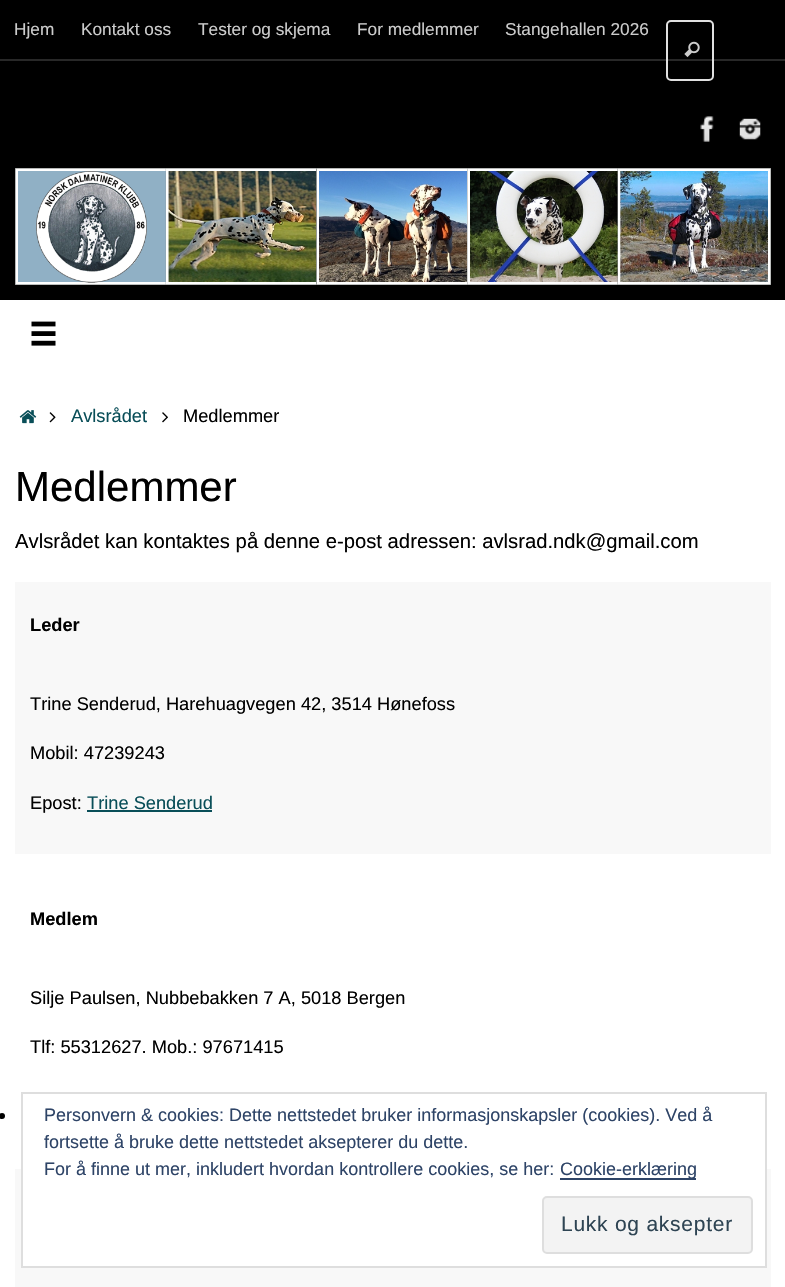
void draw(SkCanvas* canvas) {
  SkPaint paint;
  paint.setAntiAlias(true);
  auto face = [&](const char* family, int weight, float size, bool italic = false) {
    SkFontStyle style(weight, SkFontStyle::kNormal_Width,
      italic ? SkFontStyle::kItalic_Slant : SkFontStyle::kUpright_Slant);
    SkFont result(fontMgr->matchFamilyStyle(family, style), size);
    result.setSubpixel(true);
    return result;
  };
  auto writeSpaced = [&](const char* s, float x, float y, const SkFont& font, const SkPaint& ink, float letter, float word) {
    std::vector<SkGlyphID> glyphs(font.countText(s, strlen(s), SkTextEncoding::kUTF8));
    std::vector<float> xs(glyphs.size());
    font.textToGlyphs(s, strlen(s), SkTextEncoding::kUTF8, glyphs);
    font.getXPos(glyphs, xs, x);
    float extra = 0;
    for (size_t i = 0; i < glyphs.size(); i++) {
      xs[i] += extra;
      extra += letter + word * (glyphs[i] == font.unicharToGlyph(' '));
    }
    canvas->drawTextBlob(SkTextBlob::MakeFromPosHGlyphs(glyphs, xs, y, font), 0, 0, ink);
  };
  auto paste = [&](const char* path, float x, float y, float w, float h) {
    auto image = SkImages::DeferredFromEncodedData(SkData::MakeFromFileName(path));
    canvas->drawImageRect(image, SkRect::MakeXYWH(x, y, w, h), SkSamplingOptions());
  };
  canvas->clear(0xff000000);
  paint.setColor(0xff282828);
  canvas->drawRect(SkRect::MakeXYWH(0, 59, 785, 2), paint);
  paint.setStroke(true);
  paint.setStrokeWidth(2);
  paint.setColor(0xffe0e0e0);
  canvas->drawRoundRect(SkRect::MakeXYWH(667, 21, 46, 59), 4, 4, paint);
  paste("img/1.png", 684, 41, 16, 17);
  paste("img/2.png", 700, 116, 14, 26);
  paste("img/3.png", 739, 118, 22, 22);
  paste("img/4.png", 15, 168, 756, 117);
  paint.setStroke(false);
  paint.setColor(0xffffffff);
  canvas->drawRect(SkRect::MakeXYWH(0, 300, 785, 987), paint);
  paste("img/5.png", 31, 321, 25, 25);
  paste("img/6.png", 19, 410, 18, 14);
  paste("img/7.png", 49, 412, 7, 11);
  paste("img/8.png", 162, 412, 6, 11);
  {
    const struct { float x, y, w, h; SkColor color; } items[] = {
      {15, 582, 756, 272, 0xfff8f8f8},
      {87, 810, 125, 2, 0xff094e58},
      {15, 1169, 756, 118, 0xfff8f8f8},
    };
    for (auto [x, y, w, h, color] : items) {
      paint.setColor(color);
      canvas->drawRect(SkRect::MakeXYWH(x, y, w, h), paint);
    }
  }
  paint.setColor(0xff000000);
  canvas->drawCircle(2, 1116, 3, paint);
  paint.setColor(0xffffffff);
  canvas->drawRect(SkRect::MakeXYWH(23, 1169, 742, 97), paint);
  paint.setStroke(true);
  paint.setColor(0xffdedede);
  canvas->drawRect(SkRect::MakeXYWH(22, 1093, 744, 174), paint);
  paint.setStroke(false);
  paint.setColor(0xff2e4467);
  canvas->drawRect(SkRect::MakeXYWH(560, 1178, 136, 2), paint);
  paint.setColor(0xfff3f3f3);
  canvas->drawRoundRect(SkRect::MakeXYWH(543, 1197, 209, 56), 4, 4, paint);
  paint.setStroke(true);
  paint.setColor(0xffdedede);
  canvas->drawRoundRect(SkRect::MakeXYWH(543, 1197, 209, 56), 4, 4, paint);
  auto f0 = face("Liberation Sans", 400, 17.25f);
  paint.setStroke(false);
  paint.setColor(0xffcccccc);
  {
    const struct { const char* s; float x, y; } items[] = {
      {"Hjem", 14, 35},
      {"Kontakt oss", 81, 35},
      {"Tester og skjema", 198, 35},
      {"For medlemmer", 357, 35},
      {"Stangehallen 2026", 505, 35},
    };
    for (auto [s, x, y] : items) {
      canvas->drawString(s, x, y, f0, paint);
    }
  }
  auto f1 = face("Liberation Sans", 400, 18.25f);
  paint.setColor(0xff094e58);
  canvas->drawString("Avlsrådet", 71, 422, f1, paint);
  paint.setColor(0xff000000);
  canvas->drawString("Medlemmer", 183, 422, f1, paint);
  auto f2 = face("Liberation Sans", 400, 42);
  canvas->drawString("Medlemmer", 15, 501, f2, paint);
  auto f3 = face("Liberation Sans", 400, 20.25f);
  canvas->drawString("Avlsrådet kan kontaktes på denne e-post adressen: avlsrad.ndk@gmail.com", 15, 548, f3, paint);
  auto f4 = face("Liberation Sans", 700, 18.25f);
  canvas->drawString("Leder", 30, 631, f4, paint);
  {
    const struct { const char* s; float x, y; } items[] = {
      {"Trine Senderud, Harehuagvegen 42, 3514 Hønefoss", 30, 710},
      {"Mobil: 47239243", 30, 759},
      {"Epost:", 30, 809},
    };
    for (auto [s, x, y] : items) {
      canvas->drawString(s, x, y, f1, paint);
    }
  }
  paint.setColor(0xff094e58);
  canvas->drawString("Trine Senderud", 87, 809, f1, paint);
  paint.setColor(0xff000000);
  canvas->drawString("Medlem", 30, 925, f4, paint);
  canvas->drawString("Silje Paulsen, Nubbebakken 7 A, 5018 Bergen", 30, 1004, f1, paint);
  canvas->drawString("Tlf: 55312627. Mob.: 97671415", 30, 1053, f1, paint);
  auto f5 = face("Liberation Sans", 400, 18);
  paint.setColor(0xff2e4467);
  {
    const struct { const char* s; float x, y; } items[] = {
      {"Personvern & cookies: Dette nettstedet bruker informasjonskapsler (cookies). Ved å", 44, 1121},
      {"fortsette å bruke dette nettstedet aksepterer du dette.", 44, 1148},
      {"For å finne ut mer, inkludert hvordan kontrollere cookies, se her:", 44, 1175},
      {"Cookie-erklæring", 560, 1175},
    };
    for (auto [s, x, y] : items) {
      canvas->drawString(s, x, y, f5, paint);
    }
  }
  auto f6 = face("Liberation Sans", 400, 21);
  paint.setColor(0xff2e4453);
  writeSpaced("Lukk og aksepter", 561, 1231, f6, paint, 0.75f, 0);
}
